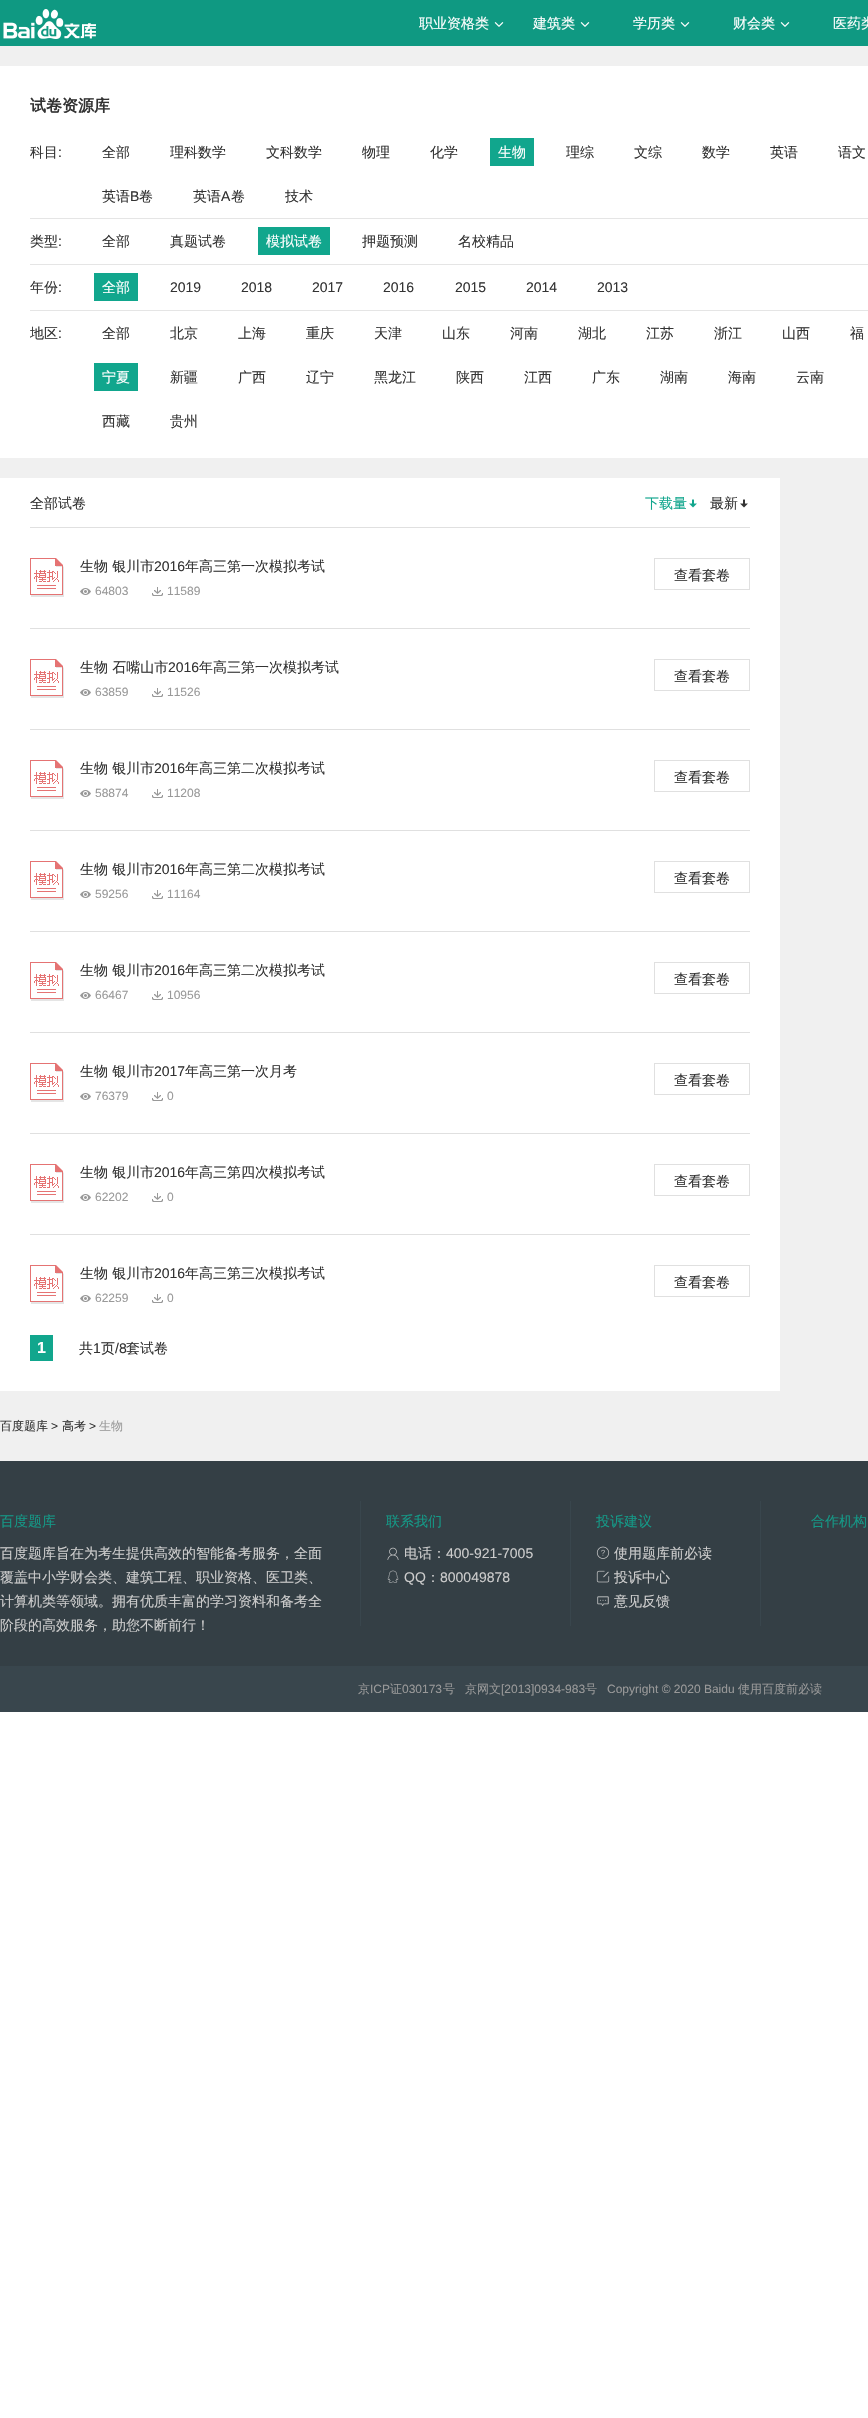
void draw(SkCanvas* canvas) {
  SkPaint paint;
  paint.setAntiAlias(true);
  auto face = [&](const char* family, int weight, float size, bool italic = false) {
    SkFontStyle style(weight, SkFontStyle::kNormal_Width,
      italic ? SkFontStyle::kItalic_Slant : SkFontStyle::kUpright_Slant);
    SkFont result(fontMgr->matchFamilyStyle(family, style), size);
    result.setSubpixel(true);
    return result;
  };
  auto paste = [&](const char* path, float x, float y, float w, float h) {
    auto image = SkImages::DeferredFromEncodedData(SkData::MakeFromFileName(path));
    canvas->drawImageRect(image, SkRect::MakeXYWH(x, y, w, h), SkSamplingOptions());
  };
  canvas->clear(0xffffffff);
  paint.setColor(0xff0f9982);
  canvas->drawRect(SkRect::MakeXYWH(0, 0, 868, 46), paint);
  paste("img/1.png", 3, 9, 93, 30);
  paste("img/2.png", 494, 22, 10, 5);
  paste("img/2.png", 580, 22, 10, 5);
  paste("img/2.png", 680, 22, 10, 5);
  paste("img/2.png", 780, 22, 10, 5);
  {
    const struct { float x, y, w, h; SkColor color; } items[] = {
      {0, 46, 868, 1415, 0xfff0f0f0},
      {0, 66, 868, 392, 0xffffffff},
      {30, 218, 838, 1, 0xffe5e5e5},
      {490, 138, 44, 28, 0xff11a68d},
      {30, 264, 838, 1, 0xffe5e5e5},
      {258, 227, 72, 28, 0xff11a68d},
      {30, 310, 838, 1, 0xffe5e5e5},
      {94, 273, 44, 28, 0xff11a68d},
      {94, 363, 44, 28, 0xff11a68d},
      {0, 478, 780, 913, 0xffffffff},
      {30, 527, 720, 1, 0xffe0e0e0},
    };
    for (auto [x, y, w, h, color] : items) {
      paint.setColor(color);
      canvas->drawRect(SkRect::MakeXYWH(x, y, w, h), paint);
    }
  }
  paste("img/3.png", 689, 499, 8, 9);
  paste("img/4.png", 740, 499, 8, 9);
  paste("img/5.png", 30, 558, 34, 39);
  paste("img/6.png", 80, 588, 11, 7);
  paste("img/7.png", 152, 587, 11, 9);
  paint.setStroke(true);
  paint.setStrokeWidth(1);
  canvas->drawRect(SkRect::MakeXYWH(654.5f, 558.5f, 95, 31), paint);
  paint.setStroke(false);
  canvas->drawRect(SkRect::MakeXYWH(30, 628, 720, 1), paint);
  paste("img/5.png", 30, 659, 34, 39);
  paste("img/6.png", 80, 689, 11, 7);
  paste("img/7.png", 152, 688, 11, 9);
  paint.setStroke(true);
  canvas->drawRect(SkRect::MakeXYWH(654.5f, 659.5f, 95, 31), paint);
  paint.setStroke(false);
  canvas->drawRect(SkRect::MakeXYWH(30, 729, 720, 1), paint);
  paste("img/5.png", 30, 760, 34, 39);
  paste("img/6.png", 80, 790, 11, 7);
  paste("img/7.png", 152, 789, 11, 9);
  paint.setStroke(true);
  canvas->drawRect(SkRect::MakeXYWH(654.5f, 760.5f, 95, 31), paint);
  paint.setStroke(false);
  canvas->drawRect(SkRect::MakeXYWH(30, 830, 720, 1), paint);
  paste("img/5.png", 30, 861, 34, 39);
  paste("img/6.png", 80, 891, 11, 7);
  paste("img/7.png", 152, 890, 11, 9);
  paint.setStroke(true);
  canvas->drawRect(SkRect::MakeXYWH(654.5f, 861.5f, 95, 31), paint);
  paint.setStroke(false);
  canvas->drawRect(SkRect::MakeXYWH(30, 931, 720, 1), paint);
  paste("img/5.png", 30, 962, 34, 39);
  paste("img/6.png", 80, 992, 11, 7);
  paste("img/7.png", 152, 991, 11, 9);
  paint.setStroke(true);
  canvas->drawRect(SkRect::MakeXYWH(654.5f, 962.5f, 95, 31), paint);
  paint.setStroke(false);
  canvas->drawRect(SkRect::MakeXYWH(30, 1032, 720, 1), paint);
  paste("img/5.png", 30, 1063, 34, 39);
  paste("img/6.png", 80, 1093, 11, 7);
  paste("img/7.png", 152, 1092, 11, 9);
  paint.setStroke(true);
  canvas->drawRect(SkRect::MakeXYWH(654.5f, 1063.5f, 95, 31), paint);
  paint.setStroke(false);
  canvas->drawRect(SkRect::MakeXYWH(30, 1133, 720, 1), paint);
  paste("img/5.png", 30, 1164, 34, 39);
  paste("img/6.png", 80, 1194, 11, 7);
  paste("img/7.png", 152, 1193, 11, 9);
  paint.setStroke(true);
  canvas->drawRect(SkRect::MakeXYWH(654.5f, 1164.5f, 95, 31), paint);
  paint.setStroke(false);
  canvas->drawRect(SkRect::MakeXYWH(30, 1234, 720, 1), paint);
  paste("img/5.png", 30, 1265, 34, 39);
  paste("img/6.png", 80, 1295, 11, 7);
  paste("img/7.png", 152, 1294, 11, 9);
  paint.setStroke(true);
  canvas->drawRect(SkRect::MakeXYWH(654.5f, 1265.5f, 95, 31), paint);
  paint.setStroke(false);
  {
    const struct { float x, y, w, h; SkColor color; } items[] = {
      {30, 1335, 23, 26, 0xff11a68d},
      {0, 1461, 868, 205, 0xff343f45},
      {360, 1501, 1, 125, 0xff39464d},
      {570, 1501, 1, 125, 0xff39464d},
    };
    for (auto [x, y, w, h, color] : items) {
      paint.setColor(color);
      canvas->drawRect(SkRect::MakeXYWH(x, y, w, h), paint);
    }
  }
  paste("img/8.png", 387, 1547, 12, 13);
  paste("img/9.png", 387, 1570, 12, 13);
  canvas->drawRect(SkRect::MakeXYWH(760, 1501, 1, 125), paint);
  paste("img/10.png", 596, 1546, 14, 13);
  paste("img/11.png", 596, 1570, 14, 13);
  paste("img/12.png", 597, 1596, 12, 10);
  canvas->drawRect(SkRect::MakeXYWH(0, 1666, 868, 46), paint);
  auto f0 = face("WenQuanYi Zen Hei", 500, 14);
  paint.setColor(0xffffffff);
  {
    const struct { const char* s; float x, y; } items[] = {
      {"职业资格类", 419, 28},
      {"建筑类", 533, 28},
      {"学历类", 633, 28},
      {"财会类", 733, 28},
      {"医药类", 833, 28},
    };
    for (auto [s, x, y] : items) {
      canvas->drawString(s, x, y, f0, paint);
    }
  }
  auto f1 = face("WenQuanYi Zen Hei", 700, 16);
  paint.setColor(0xff333333);
  canvas->drawString("试卷资源库", 30, 111, f1, paint);
  canvas->drawString("科目", 30, 157, f0, paint);
  auto f2 = face("Liberation Sans", 400, 14);
  canvas->drawString(":", 58, 157, f2, paint);
  {
    const struct { const char* s; float x, y; } items[] = {
      {"全部", 102, 157},
      {"理科数学", 170, 157},
      {"文科数学", 266, 157},
      {"物理", 362, 157},
      {"化学", 430, 157},
    };
    for (auto [s, x, y] : items) {
      canvas->drawString(s, x, y, f0, paint);
    }
  }
  paint.setColor(0xffffffff);
  canvas->drawString("生物", 498, 157, f0, paint);
  paint.setColor(0xff333333);
  {
    const struct { const char* s; float x, y; } items[] = {
      {"理综", 566, 157},
      {"文综", 634, 157},
      {"数学", 702, 157},
      {"英语", 770, 157},
      {"语文", 838, 157},
      {"英语", 102, 201},
    };
    for (auto [s, x, y] : items) {
      canvas->drawString(s, x, y, f0, paint);
    }
  }
  canvas->drawString("B", 130, 201, f2, paint);
  canvas->drawString("卷", 139, 201, f0, paint);
  canvas->drawString("英语", 193, 201, f0, paint);
  canvas->drawString("A", 221, 201, f2, paint);
  {
    const struct { const char* s; float x, y; } items[] = {
      {"卷", 231, 201},
      {"技术", 285, 201},
      {"类型", 30, 246},
    };
    for (auto [s, x, y] : items) {
      canvas->drawString(s, x, y, f0, paint);
    }
  }
  canvas->drawString(":", 58, 246, f2, paint);
  canvas->drawString("全部", 102, 246, f0, paint);
  canvas->drawString("真题试卷", 170, 246, f0, paint);
  paint.setColor(0xffffffff);
  canvas->drawString("模拟试卷", 266, 246, f0, paint);
  paint.setColor(0xff333333);
  {
    const struct { const char* s; float x, y; } items[] = {
      {"押题预测", 362, 246},
      {"名校精品", 458, 246},
      {"年份", 30, 292},
    };
    for (auto [s, x, y] : items) {
      canvas->drawString(s, x, y, f0, paint);
    }
  }
  canvas->drawString(":", 58, 292, f2, paint);
  paint.setColor(0xffffffff);
  canvas->drawString("全部", 102, 292, f0, paint);
  paint.setColor(0xff333333);
  {
    const struct { const char* s; float x, y; } items[] = {
      {"2019", 170, 292},
      {"2018", 241, 292},
      {"2017", 312, 292},
      {"2016", 383, 292},
      {"2015", 455, 292},
      {"2014", 526, 292},
      {"2013", 597, 292},
    };
    for (auto [s, x, y] : items) {
      canvas->drawString(s, x, y, f2, paint);
    }
  }
  canvas->drawString("地区", 30, 338, f0, paint);
  canvas->drawString(":", 58, 338, f2, paint);
  {
    const struct { const char* s; float x, y; } items[] = {
      {"全部", 102, 338},
      {"北京", 170, 338},
      {"上海", 238, 338},
      {"重庆", 306, 338},
      {"天津", 374, 338},
      {"山东", 442, 338},
      {"河南", 510, 338},
      {"湖北", 578, 338},
      {"江苏", 646, 338},
      {"浙江", 714, 338},
      {"山西", 782, 338},
      {"福", 850, 338},
    };
    for (auto [s, x, y] : items) {
      canvas->drawString(s, x, y, f0, paint);
    }
  }
  paint.setColor(0xffffffff);
  canvas->drawString("宁夏", 102, 382, f0, paint);
  paint.setColor(0xff333333);
  {
    const struct { const char* s; float x, y; } items[] = {
      {"新疆", 170, 382},
      {"广西", 238, 382},
      {"辽宁", 306, 382},
      {"黑龙江", 374, 382},
      {"陕西", 456, 382},
      {"江西", 524, 382},
      {"广东", 592, 382},
      {"湖南", 660, 382},
      {"海南", 728, 382},
      {"云南", 796, 382},
      {"西藏", 102, 426},
      {"贵州", 170, 426},
      {"全部试卷", 30, 508},
    };
    for (auto [s, x, y] : items) {
      canvas->drawString(s, x, y, f0, paint);
    }
  }
  paint.setColor(0xff11a68d);
  canvas->drawString("下载量", 645, 508, f0, paint);
  paint.setColor(0xff333333);
  canvas->drawString("最新", 710, 508, f0, paint);
  canvas->drawString("生物 银川市", 80, 571, f0, paint);
  canvas->drawString("2016", 154, 571, f2, paint);
  canvas->drawString("年高三第一次模拟考试", 185, 571, f0, paint);
  auto f3 = face("Liberation Sans", 400, 12);
  paint.setColor(0xff999999);
  canvas->drawString("64803", 95, 595, f3, paint);
  canvas->drawString("11589", 167, 595, f3, paint);
  paint.setColor(0xff333333);
  canvas->drawString("查看套卷", 674, 580, f0, paint);
  canvas->drawString("生物 石嘴山市", 80, 672, f0, paint);
  canvas->drawString("2016", 168, 672, f2, paint);
  canvas->drawString("年高三第一次模拟考试", 199, 672, f0, paint);
  paint.setColor(0xff999999);
  canvas->drawString("63859", 95, 696, f3, paint);
  canvas->drawString("11526", 167, 696, f3, paint);
  paint.setColor(0xff333333);
  canvas->drawString("查看套卷", 674, 681, f0, paint);
  canvas->drawString("生物 银川市", 80, 773, f0, paint);
  canvas->drawString("2016", 154, 773, f2, paint);
  canvas->drawString("年高三第二次模拟考试", 185, 773, f0, paint);
  paint.setColor(0xff999999);
  canvas->drawString("58874", 95, 797, f3, paint);
  canvas->drawString("11208", 167, 797, f3, paint);
  paint.setColor(0xff333333);
  canvas->drawString("查看套卷", 674, 782, f0, paint);
  canvas->drawString("生物 银川市", 80, 874, f0, paint);
  canvas->drawString("2016", 154, 874, f2, paint);
  canvas->drawString("年高三第二次模拟考试", 185, 874, f0, paint);
  paint.setColor(0xff999999);
  canvas->drawString("59256", 95, 898, f3, paint);
  canvas->drawString("11164", 167, 898, f3, paint);
  paint.setColor(0xff333333);
  canvas->drawString("查看套卷", 674, 883, f0, paint);
  canvas->drawString("生物 银川市", 80, 975, f0, paint);
  canvas->drawString("2016", 154, 975, f2, paint);
  canvas->drawString("年高三第二次模拟考试", 185, 975, f0, paint);
  paint.setColor(0xff999999);
  canvas->drawString("66467", 95, 999, f3, paint);
  canvas->drawString("10956", 167, 999, f3, paint);
  paint.setColor(0xff333333);
  canvas->drawString("查看套卷", 674, 984, f0, paint);
  canvas->drawString("生物 银川市", 80, 1076, f0, paint);
  canvas->drawString("2017", 154, 1076, f2, paint);
  canvas->drawString("年高三第一次月考", 185, 1076, f0, paint);
  paint.setColor(0xff999999);
  canvas->drawString("76379", 95, 1100, f3, paint);
  canvas->drawString("0", 167, 1100, f3, paint);
  paint.setColor(0xff333333);
  canvas->drawString("查看套卷", 674, 1085, f0, paint);
  canvas->drawString("生物 银川市", 80, 1177, f0, paint);
  canvas->drawString("2016", 154, 1177, f2, paint);
  canvas->drawString("年高三第四次模拟考试", 185, 1177, f0, paint);
  paint.setColor(0xff999999);
  canvas->drawString("62202", 95, 1201, f3, paint);
  canvas->drawString("0", 167, 1201, f3, paint);
  paint.setColor(0xff333333);
  canvas->drawString("查看套卷", 674, 1186, f0, paint);
  canvas->drawString("生物 银川市", 80, 1278, f0, paint);
  canvas->drawString("2016", 154, 1278, f2, paint);
  canvas->drawString("年高三第三次模拟考试", 185, 1278, f0, paint);
  paint.setColor(0xff999999);
  canvas->drawString("62259", 95, 1302, f3, paint);
  canvas->drawString("0", 167, 1302, f3, paint);
  paint.setColor(0xff333333);
  canvas->drawString("查看套卷", 674, 1287, f0, paint);
  auto f4 = face("Liberation Sans", 700, 16);
  paint.setColor(0xffffffff);
  canvas->drawString("1", 37, 1353, f4, paint);
  paint.setColor(0xff333333);
  canvas->drawString("共", 79, 1353, f0, paint);
  canvas->drawString("1", 93, 1353, f2, paint);
  canvas->drawString("页", 101, 1353, f0, paint);
  canvas->drawString("/8", 115, 1353, f2, paint);
  canvas->drawString("套试卷", 126, 1353, f0, paint);
  auto f5 = face("WenQuanYi Zen Hei", 500, 12);
  canvas->drawString("百度题库", 0, 1430, f5, paint);
  canvas->drawString(">", 51, 1430, f3, paint);
  canvas->drawString("高考", 62, 1430, f5, paint);
  canvas->drawString(">", 89, 1430, f3, paint);
  paint.setColor(0xff999999);
  canvas->drawString("生物", 99, 1430, f5, paint);
  paint.setColor(0xff149987);
  canvas->drawString("百度题库", 0, 1526, f0, paint);
  paint.setColor(0xffcccccc);
  {
    const struct { const char* s; float x, y; } items[] = {
      {"百度题库旨在为考生提供高效的智能备考服务，全面", 0, 1558},
      {"覆盖中小学财会类、建筑工程、职业资格、医卫类、", 0, 1582},
      {"计算机类等领域。拥有优质丰富的学习资料和备考全", 0, 1606},
      {"阶段的高效服务，助您不断前行！", 0, 1630},
    };
    for (auto [s, x, y] : items) {
      canvas->drawString(s, x, y, f0, paint);
    }
  }
  paint.setColor(0xff149987);
  canvas->drawString("联系我们", 386, 1526, f0, paint);
  paint.setColor(0xffcccccc);
  canvas->drawString("电话：", 404, 1558, f0, paint);
  canvas->drawString("400-921-7005", 446, 1558, f2, paint);
  canvas->drawString("QQ", 404, 1582, f2, paint);
  canvas->drawString("：", 426, 1582, f0, paint);
  canvas->drawString("800049878", 440, 1582, f2, paint);
  paint.setColor(0xff149987);
  canvas->drawString("投诉建议", 596, 1526, f0, paint);
  paint.setColor(0xffcccccc);
  {
    const struct { const char* s; float x, y; } items[] = {
      {"使用题库前必读", 614, 1558},
      {"投诉中心", 614, 1582},
      {"意见反馈", 614, 1606},
    };
    for (auto [s, x, y] : items) {
      canvas->drawString(s, x, y, f0, paint);
    }
  }
  paint.setColor(0xff149987);
  canvas->drawString("合作机构", 811, 1526, f0, paint);
  paint.setColor(0xff999999);
  canvas->drawString("京", 358, 1693, f5, paint);
  canvas->drawString("ICP", 370, 1693, f3, paint);
  canvas->drawString("证", 390, 1693, f5, paint);
  canvas->drawString("030173", 402, 1693, f3, paint);
  canvas->drawString("号", 443, 1693, f5, paint);
  canvas->drawString("京网文", 465, 1693, f5, paint);
  canvas->drawString("[2013]0934-983", 501, 1693, f3, paint);
  canvas->drawString("号", 585, 1693, f5, paint);
  canvas->drawString("Copyright © 2020 Baidu", 607, 1693, f3, paint);
  canvas->drawString("使用百度前必读", 738, 1693, f5, paint);
}
